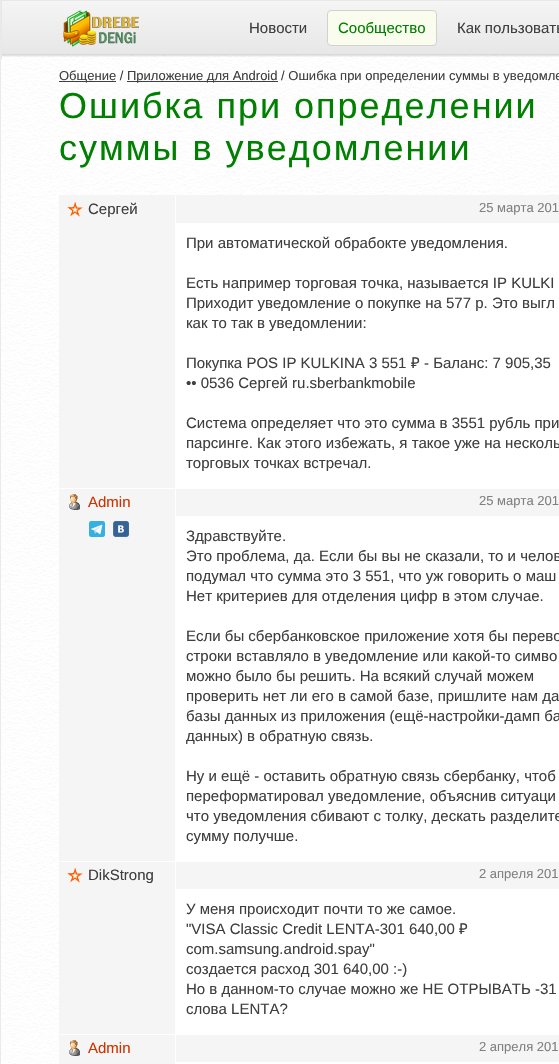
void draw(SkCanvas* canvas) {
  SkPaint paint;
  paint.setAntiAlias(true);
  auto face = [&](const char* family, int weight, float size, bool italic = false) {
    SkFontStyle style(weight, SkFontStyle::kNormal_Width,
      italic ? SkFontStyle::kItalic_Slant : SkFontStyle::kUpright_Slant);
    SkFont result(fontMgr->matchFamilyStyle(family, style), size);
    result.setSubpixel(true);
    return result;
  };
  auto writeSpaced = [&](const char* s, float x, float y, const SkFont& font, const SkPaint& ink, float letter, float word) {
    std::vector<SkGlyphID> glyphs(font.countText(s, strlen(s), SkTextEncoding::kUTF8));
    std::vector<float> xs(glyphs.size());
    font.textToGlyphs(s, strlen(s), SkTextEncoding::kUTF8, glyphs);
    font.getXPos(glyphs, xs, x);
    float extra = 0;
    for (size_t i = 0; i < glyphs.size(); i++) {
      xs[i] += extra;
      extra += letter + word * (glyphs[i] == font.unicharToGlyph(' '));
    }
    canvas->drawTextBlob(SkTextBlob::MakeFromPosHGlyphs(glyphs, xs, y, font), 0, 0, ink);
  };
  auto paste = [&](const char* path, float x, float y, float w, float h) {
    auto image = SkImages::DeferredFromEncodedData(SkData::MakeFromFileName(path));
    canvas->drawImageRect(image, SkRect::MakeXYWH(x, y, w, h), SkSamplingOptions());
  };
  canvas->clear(0xffffffff);
  paste("img/1.png", 1, 55, 558, 1009);
  paint.setColor(0xffeaeaea);
  canvas->drawRect(SkRect::MakeXYWH(0, 0, 1, 1064), paint);
  paste("img/2.png", 2, 1, 557, 56);
  paint.setColor(0xffe7e7e7);
  canvas->drawRect(SkRect::MakeXYWH(1, 0, 558, 1), paint);
  canvas->drawRect(SkRect::MakeXYWH(1, 0, 1, 59), paint);
  paste("img/3.png", 63, 10, 76, 37);
  paint.setColor(0xfffafced);
  canvas->drawRoundRect(SkRect::MakeXYWH(327.5f, 10.5f, 109, 35), 3.5f, 3.5f, paint);
  paint.setStroke(true);
  paint.setStrokeWidth(1);
  paint.setColor(0xffd1d1d1);
  canvas->drawRoundRect(SkRect::MakeXYWH(327.5f, 10.5f, 109, 35), 3.5f, 3.5f, paint);
  paint.setStroke(false);
  {
    const struct { float x, y, w, h; SkColor color; } items[] = {
      {59, 81, 57, 1, 0xff3f3f3f},
      {127, 81, 151, 1, 0xff3f3f3f},
      {60, 223, 499, 841, 0xffffffff},
    };
    for (auto [x, y, w, h, color] : items) {
      paint.setColor(color);
      canvas->drawRect(SkRect::MakeXYWH(x, y, w, h), paint);
    }
  }
  paint.setStroke(true);
  paint.setColor(0xfff5f5f5);
  canvas->drawRect(SkRect::MakeXYWH(59.5f, 195.5f, 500, 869), paint);
  paint.setStroke(false);
  canvas->drawRect(SkRect::MakeXYWH(60, 196, 115, 292), paint);
  paint.setColor(0xffffffff);
  canvas->drawRect(SkRect::MakeXYWH(175, 196, 1, 25), paint);
  paste("img/4.png", 67, 202, 16, 15);
  paint.setColor(0xfff5f5f5);
  canvas->drawRect(SkRect::MakeXYWH(176, 196, 383, 27), paint);
  canvas->drawRect(SkRect::MakeXYWH(60, 489, 115, 372), paint);
  paste("img/5.png", 69, 494, 11, 16);
  paste("img/6.png", 89, 521, 16, 16);
  paste("img/7.png", 113, 521, 16, 16);
  canvas->drawRect(SkRect::MakeXYWH(176, 489, 383, 27), paint);
  canvas->drawRect(SkRect::MakeXYWH(60, 862, 115, 172), paint);
  paste("img/4.png", 67, 868, 16, 15);
  canvas->drawRect(SkRect::MakeXYWH(176, 862, 383, 27), paint);
  canvas->drawRect(SkRect::MakeXYWH(60, 1035, 115, 29), paint);
  paste("img/5.png", 69, 1040, 11, 16);
  canvas->drawRect(SkRect::MakeXYWH(176, 1035, 383, 27), paint);
  auto f0 = face("Liberation Sans", 400, 15);
  paint.setColor(0xff3f3f3f);
  canvas->drawString("Новости", 249, 33, f0, paint);
  paint.setColor(0xff008000);
  canvas->drawString("Сообщество", 338, 33, f0, paint);
  paint.setColor(0xff3f3f3f);
  canvas->drawString("Как пользовать", 457, 33, f0, paint);
  auto f1 = face("Liberation Sans", 400, 13);
  canvas->drawString("Общение /", 59, 80, f1, paint);
  canvas->drawString("Приложение для Android / Ошибка при определении суммы в уведомле", 127, 80, f1, paint);
  auto f2 = face("Liberation Sans", 400, 36);
  paint.setColor(0xff008000);
  writeSpaced("Ошибка при определении", 59, 118, f2, paint, 2, 0);
  writeSpaced("суммы в уведомлении", 59, 160, f2, paint, 2, 0);
  paint.setColor(0xff3f3f3f);
  canvas->drawString("Сергей", 88, 214, f0, paint);
  paint.setColor(0xff808080);
  canvas->drawString("25 марта 201", 479, 212, f1, paint);
  paint.setColor(0xff3f3f3f);
  {
    const struct { const char* s; float x, y; } items[] = {
      {"При автоматической обрабокте уведомления.", 186, 248},
      {"Есть например торговая точка, называется IP KULKI", 186, 288},
      {"Приходит уведомление о покупке на 577 р. Это выгл", 186, 308},
      {"как то так в уведомлении:", 186, 328},
      {"Покупка POS IP KULKINA 3 551", 186, 368},
    };
    for (auto [s, x, y] : items) {
      canvas->drawString(s, x, y, f0, paint);
    }
  }
  auto f3 = face("Noto Sans", 400, 15);
  canvas->drawString("₽", 411, 368, f3, paint);
  {
    const struct { const char* s; float x, y; } items[] = {
      {"- Баланс: 7 905,35", 424, 368},
      {"•• 0536 Сергей ru.sberbankmobile", 186, 388},
      {"Система определяет что это сумма в 3551 рубль при", 186, 428},
      {"парсинге. Как этого избежать, я такое уже на несколь", 186, 448},
      {"торговых точках встречал.", 186, 468},
    };
    for (auto [s, x, y] : items) {
      canvas->drawString(s, x, y, f0, paint);
    }
  }
  paint.setColor(0xffcc3300);
  canvas->drawString("Admin", 88, 507, f0, paint);
  paint.setColor(0xff808080);
  canvas->drawString("25 марта 201", 479, 505, f1, paint);
  paint.setColor(0xff3f3f3f);
  {
    const struct { const char* s; float x, y; } items[] = {
      {"Здравствуйте.", 186, 541},
      {"Это проблема, да. Если бы вы не сказали, то и челов", 186, 561},
      {"подумал что сумма это 3 551, что уж говорить о маш", 186, 581},
      {"Нет критериев для отделения цифр в этом случае.", 186, 601},
      {"Если бы сбербанковское приложение хотя бы перево", 186, 641},
      {"строки вставляло в уведомление или какой-то симво", 186, 661},
      {"можно было бы решить. На всякий случай можем", 186, 681},
      {"проверить нет ли его в самой базе, пришлите нам да", 186, 701},
      {"базы данных из приложения (ещё-настройки-дамп ба", 186, 721},
      {"данных) в обратную связь.", 186, 741},
      {"Ну и ещё - оставить обратную связь сбербанку, чтоб", 186, 781},
      {"переформатировал уведомление, объяснив ситуаци", 186, 801},
      {"что уведомления сбивают с толку, дескать разделите", 186, 821},
      {"сумму получше.", 186, 841},
      {"DikStrong", 88, 880},
    };
    for (auto [s, x, y] : items) {
      canvas->drawString(s, x, y, f0, paint);
    }
  }
  paint.setColor(0xff808080);
  canvas->drawString("2 апреля 201", 479, 878, f1, paint);
  paint.setColor(0xff3f3f3f);
  canvas->drawString("У меня происходит почти то же самое.", 186, 914, f0, paint);
  canvas->drawString("\"VISA Classic Credit LENTA-301 640,00", 186, 934, f0, paint);
  canvas->drawString("₽", 459, 934, f3, paint);
  {
    const struct { const char* s; float x, y; } items[] = {
      {"com.samsung.android.spay\"", 186, 954},
      {"создается расход 301 640,00 :-)", 186, 974},
      {"Но в данном-то случае можно же НЕ ОТРЫВАТЬ -31", 186, 994},
      {"слова LENTA?", 186, 1014},
    };
    for (auto [s, x, y] : items) {
      canvas->drawString(s, x, y, f0, paint);
    }
  }
  paint.setColor(0xffcc3300);
  canvas->drawString("Admin", 88, 1053, f0, paint);
  paint.setColor(0xff808080);
  canvas->drawString("2 апреля 201", 479, 1051, f1, paint);
}
